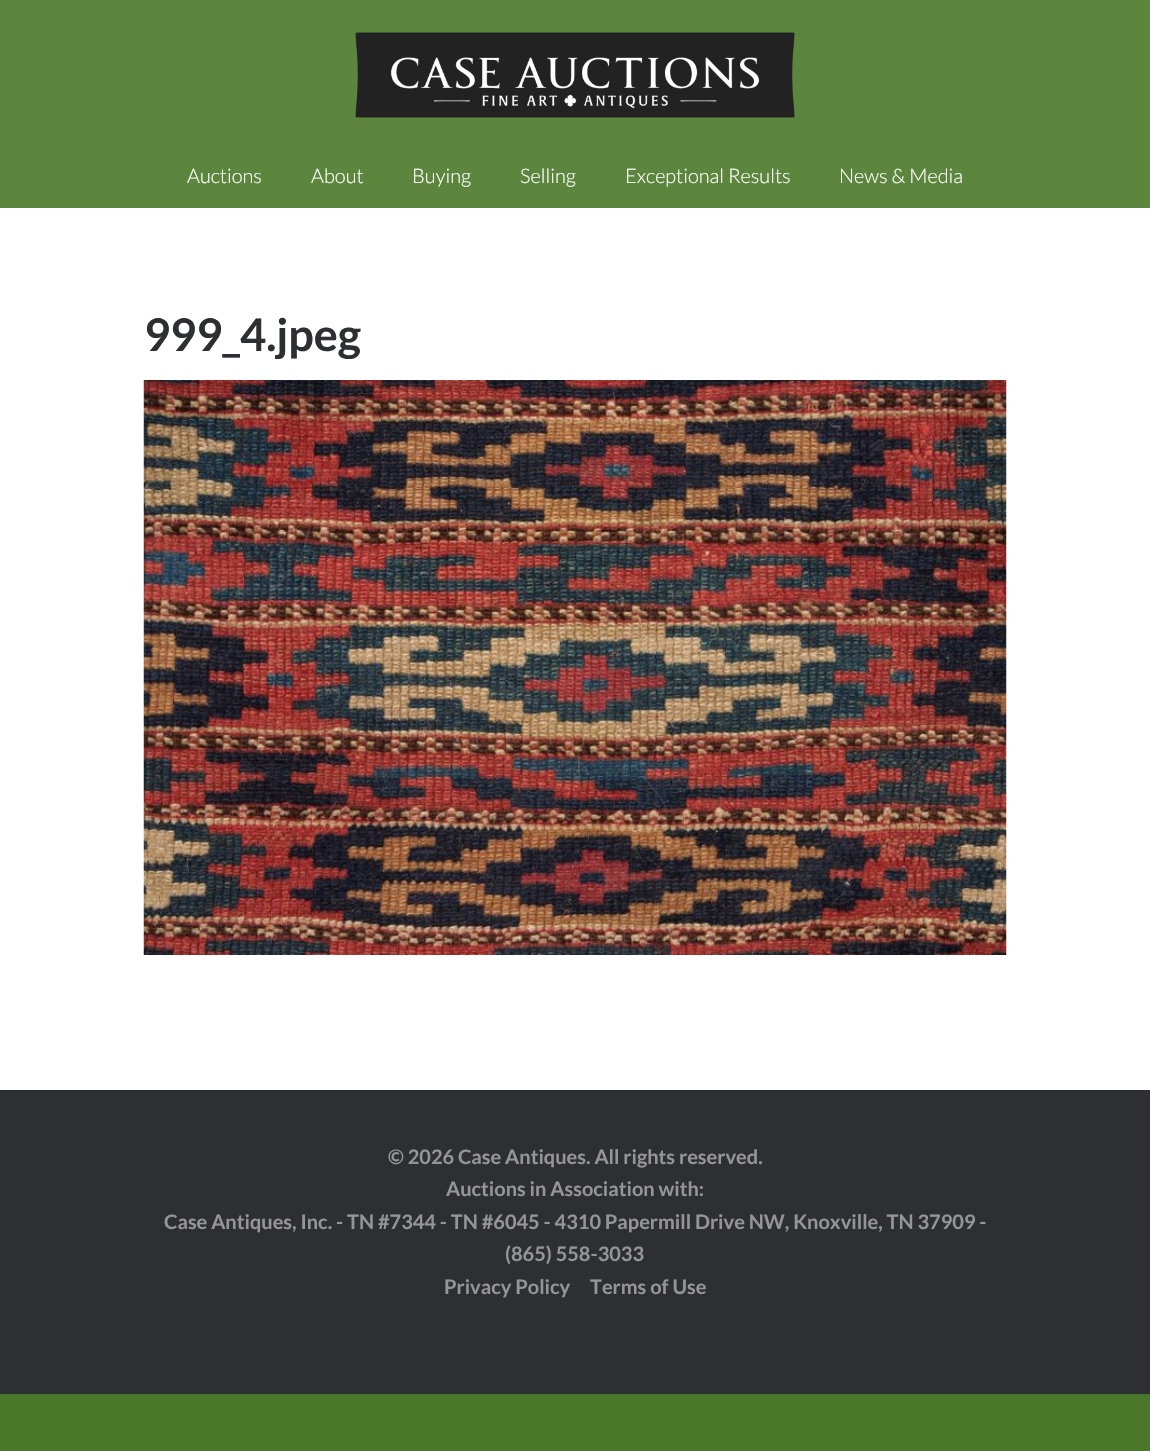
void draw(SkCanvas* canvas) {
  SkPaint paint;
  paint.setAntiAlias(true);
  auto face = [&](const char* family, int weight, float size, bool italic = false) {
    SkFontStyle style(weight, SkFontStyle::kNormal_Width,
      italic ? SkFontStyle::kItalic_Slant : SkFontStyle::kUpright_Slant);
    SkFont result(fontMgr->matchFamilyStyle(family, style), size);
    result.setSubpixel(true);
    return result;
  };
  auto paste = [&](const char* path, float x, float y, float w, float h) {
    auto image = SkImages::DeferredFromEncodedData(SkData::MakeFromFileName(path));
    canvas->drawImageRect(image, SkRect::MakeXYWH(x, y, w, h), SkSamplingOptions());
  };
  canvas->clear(0xff4a7729);
  paint.setColor(0xff5c853e);
  canvas->drawRect(SkRect::MakeXYWH(0, 0, 1150, 208), paint);
  paste("img/1.png", 355, 32, 440, 86);
  paint.setColor(0xffffffff);
  canvas->drawRect(SkRect::MakeXYWH(0, 208, 1150, 882), paint);
  paste("img/2.png", 143, 380, 864, 575);
  paint.setColor(0xff2e2f33);
  canvas->drawRect(SkRect::MakeXYWH(0, 1090, 1150, 304), paint);
  auto f0 = face("Lato", 300, 20);
  paint.setColor(0xffffffff);
  {
    const struct { const char* s; float x, y; } items[] = {
      {"Auctions", 187, 183},
      {"About", 311, 183},
      {"Buying", 412, 183},
      {"Selling", 520, 183},
      {"Exceptional Results", 625, 183},
      {"News & Media", 839, 183},
    };
    for (auto [s, x, y] : items) {
      canvas->drawString(s, x, y, f0, paint);
    }
  }
  auto f1 = face("Lato", 700, 45);
  paint.setColor(0xff2e2f33);
  canvas->drawString("999_4.jpeg", 144, 351, f1, paint);
  auto f2 = face("Lato", 700, 20);
  paint.setColor(0xff959595);
  {
    const struct { const char* s; float x, y; } items[] = {
      {"© 2026 Case Antiques. All rights reserved.", 388, 1164},
      {"Auctions in Association with:", 446, 1196},
      {"Case Antiques, Inc. - TN #7344 - TN #6045 - 4310 Papermill Drive NW, Knoxville, TN 37909 -", 164, 1229},
      {"(865) 558-3033", 505, 1261},
      {"Privacy Policy", 444, 1294},
      {"Terms of Use", 590, 1294},
    };
    for (auto [s, x, y] : items) {
      canvas->drawString(s, x, y, f2, paint);
    }
  }
}
